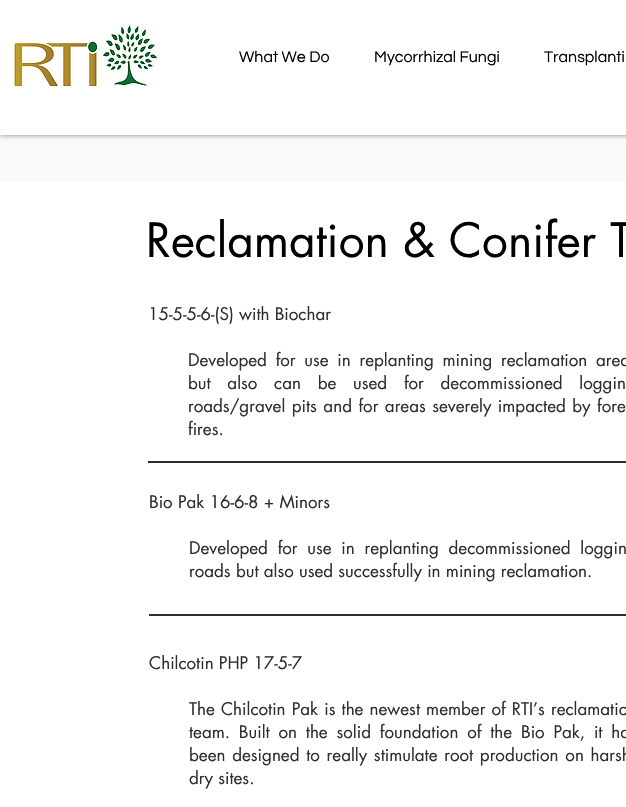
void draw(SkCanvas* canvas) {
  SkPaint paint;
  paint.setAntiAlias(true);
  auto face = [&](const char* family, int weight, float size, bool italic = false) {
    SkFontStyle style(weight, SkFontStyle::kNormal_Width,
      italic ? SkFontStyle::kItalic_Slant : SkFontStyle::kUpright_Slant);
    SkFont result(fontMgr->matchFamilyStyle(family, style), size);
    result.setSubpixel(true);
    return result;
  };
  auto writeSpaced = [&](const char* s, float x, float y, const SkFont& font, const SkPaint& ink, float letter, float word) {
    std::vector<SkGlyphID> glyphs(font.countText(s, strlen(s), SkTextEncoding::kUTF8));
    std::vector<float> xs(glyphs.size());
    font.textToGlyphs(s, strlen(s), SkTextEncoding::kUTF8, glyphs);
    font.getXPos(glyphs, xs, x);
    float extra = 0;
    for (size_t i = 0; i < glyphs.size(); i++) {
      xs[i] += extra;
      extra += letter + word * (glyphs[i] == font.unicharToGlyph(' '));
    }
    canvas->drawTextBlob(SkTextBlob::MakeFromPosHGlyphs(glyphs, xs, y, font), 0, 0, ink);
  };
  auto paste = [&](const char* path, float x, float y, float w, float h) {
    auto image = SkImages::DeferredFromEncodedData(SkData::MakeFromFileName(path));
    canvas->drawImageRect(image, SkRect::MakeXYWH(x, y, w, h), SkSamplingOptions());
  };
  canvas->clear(0xffffffff);
  paint.setColor(0xfffafafa);
  canvas->drawRect(SkRect::MakeXYWH(0, 135, 626, 47), paint);
  paint.setColor(0x80000000);
  paint.setMaskFilter(SkMaskFilter::MakeBlur(kNormal_SkBlurStyle, 2.5f));
  canvas->drawRect(SkRect::MakeXYWH(0, 0, 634, 135), paint);
  paint.setMaskFilter(nullptr);
  paint.setColor(0xffffffff);
  canvas->drawRect(SkRect::MakeXYWH(0, 0, 626, 135), paint);
  paste("img/1.png", 12, 25, 145, 62);
  paint.setColor(0xff2f2d2a);
  canvas->drawRect(SkRect::MakeXYWH(148, 461, 478, 2), paint);
  canvas->drawRect(SkRect::MakeXYWH(149, 614, 477, 2), paint);
  auto f0 = face("Questrial", 400, 16);
  paint.setColor(0xff000000);
  {
    const struct { const char* s; float x, y; } items[] = {
      {"What We Do", 239, 62},
      {"Mycorrhizal Fungi", 374, 62},
      {"Transplanti", 544, 62},
    };
    for (auto [s, x, y] : items) {
      canvas->drawString(s, x, y, f0, paint);
    }
  }
  auto f1 = face("futura", 400, 46);
  canvas->drawString("Reclamation & Conifer T", 146, 257, f1, paint);
  auto f2 = face("futura", 400, 17);
  paint.setColor(0xff2f2d2a);
  canvas->drawString("15-5-5-6-(S) with Biochar", 148, 320, f2, paint);
  writeSpaced("Developed for use in replanting mining reclamation area", 188, 366, f2, paint, 0, 3.5f);
  writeSpaced("but also can be used for decommissioned loggin", 188, 389, f2, paint, 0, 11.5f);
  writeSpaced("roads/gravel pits and for areas severely impacted by fore", 188, 412, f2, paint, 0, 1.25f);
  canvas->drawString("fires.", 188, 435, f2, paint);
  canvas->drawString("Bio Pak 16-6-8 + Minors", 149, 508, f2, paint);
  writeSpaced("Developed for use in replanting decommissioned loggin", 189, 554, f2, paint, 0, 4.5f);
  canvas->drawString("roads but also used successfully in mining reclamation.", 189, 577, f2, paint);
  canvas->drawString("Chilcotin PHP 17-5-7", 149, 669, f2, paint);
  writeSpaced("The Chilcotin Pak is the newest member of RTI’s reclamatio", 189, 715, f2, paint, 0, 0.9f);
  writeSpaced("team. Built on the solid foundation of the Bio Pak, it ha", 189, 738, f2, paint, 0, 3.6f);
  writeSpaced("been designed to really stimulate root production on harsh", 189, 761, f2, paint, 0, 1.5f);
  canvas->drawString("dry sites.", 189, 784, f2, paint);
}
